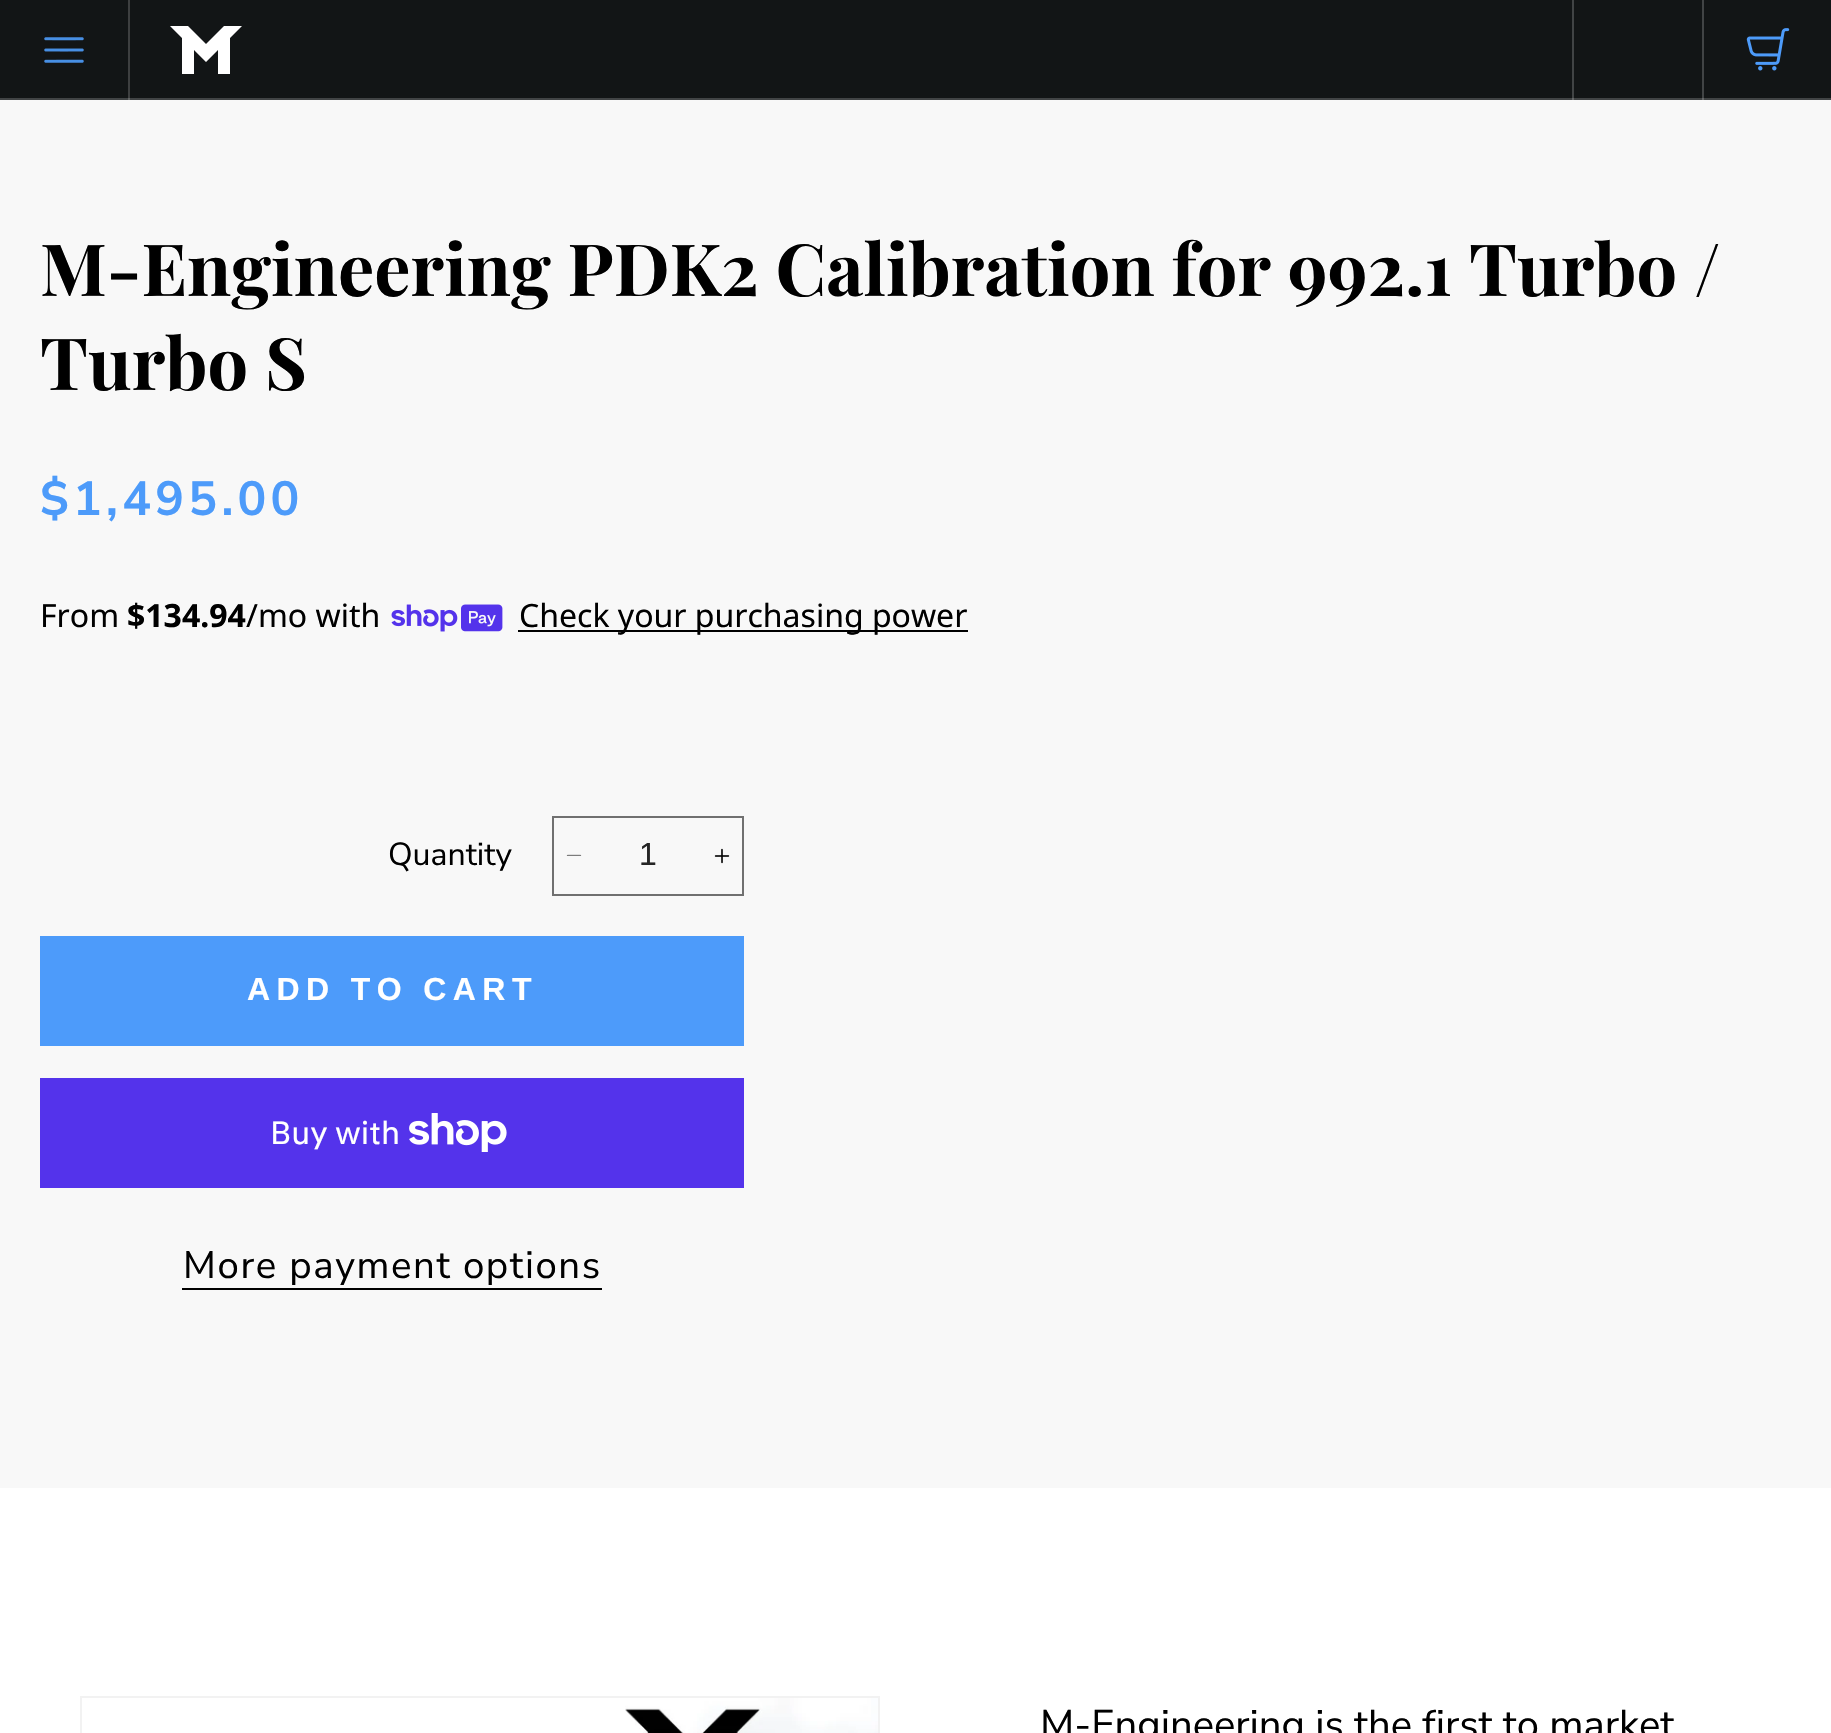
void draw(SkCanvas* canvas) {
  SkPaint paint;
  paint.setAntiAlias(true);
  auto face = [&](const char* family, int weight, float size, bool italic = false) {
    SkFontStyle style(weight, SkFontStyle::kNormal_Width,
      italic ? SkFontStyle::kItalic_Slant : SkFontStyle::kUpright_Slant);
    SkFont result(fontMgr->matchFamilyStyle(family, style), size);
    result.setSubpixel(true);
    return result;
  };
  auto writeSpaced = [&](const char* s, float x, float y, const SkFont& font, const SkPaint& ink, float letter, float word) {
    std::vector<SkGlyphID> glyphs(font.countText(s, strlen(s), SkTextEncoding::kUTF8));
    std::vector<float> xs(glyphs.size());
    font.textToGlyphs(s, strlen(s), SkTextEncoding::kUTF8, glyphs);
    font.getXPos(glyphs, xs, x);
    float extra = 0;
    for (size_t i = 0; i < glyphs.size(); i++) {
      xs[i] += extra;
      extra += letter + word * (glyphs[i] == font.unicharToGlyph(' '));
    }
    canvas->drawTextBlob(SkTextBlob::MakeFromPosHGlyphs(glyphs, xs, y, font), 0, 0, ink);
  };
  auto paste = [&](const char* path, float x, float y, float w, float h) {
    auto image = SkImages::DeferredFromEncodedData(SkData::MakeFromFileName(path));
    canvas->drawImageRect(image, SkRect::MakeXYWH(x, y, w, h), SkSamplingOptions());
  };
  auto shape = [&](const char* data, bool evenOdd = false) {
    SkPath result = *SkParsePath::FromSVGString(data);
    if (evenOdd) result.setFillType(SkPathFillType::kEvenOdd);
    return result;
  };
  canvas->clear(0xffffffff);
  {
    const struct { float x, y, w, h; SkColor color; } items[] = {
      {0, 0, 1831, 98, 0xff121516},
      {128, 0, 2, 100, 0xff3d3f40},
      {1702, 0, 2, 100, 0xff414445},
      {1572, 0, 2, 100, 0xff414445},
      {0, 98, 1831, 2, 0xff414445},
      {128, 98, 2, 2, 0xff636666},
      {1702, 98, 2, 2, 0xff67696a},
      {1572, 98, 2, 2, 0xff67696a},
    };
    for (auto [x, y, w, h, color] : items) {
      paint.setColor(color);
      canvas->drawRect(SkRect::MakeXYWH(x, y, w, h), paint);
    }
  }
  paste("img/1.png", 44, 37, 40, 26);
  paint.setColor(0xffffffff);
  canvas->drawPath(shape("M182 74V38L170 26H188L206 44L224 26H242L230 38V74H218V50L206 62L194 50V74Z"), paint);
  paste("img/2.png", 1746, 28, 44, 43);
  paint.setColor(0xfff8f8f8);
  canvas->drawRect(SkRect::MakeXYWH(0, 100, 1831, 1388), paint);
  paste("img/3.png", 391, 604, 112, 28);
  paint.setColor(0xff000000);
  canvas->drawRect(SkRect::MakeXYWH(518, 630, 450, 2), paint);
  paste("img/4.png", 566, 854, 16, 2);
  paste("img/5.png", 714, 848, 16, 16);
  paint.setStroke(true);
  paint.setStrokeWidth(2);
  paint.setColor(0xff707070);
  canvas->drawRect(SkRect::MakeXYWH(553, 817, 190, 78), paint);
  paint.setStroke(false);
  paint.setColor(0xff4d9bfa);
  canvas->drawRect(SkRect::MakeXYWH(40, 936, 704, 110), paint);
  paint.setColor(0xff5433eb);
  canvas->drawRect(SkRect::MakeXYWH(40, 1078, 704, 110), paint);
  paste("img/6.png", 409, 1113, 98, 39);
  paint.setColor(0xff000000);
  canvas->drawRect(SkRect::MakeXYWH(182, 1288, 420, 2), paint);
  paint.setStroke(true);
  paint.setColor(0xfff2f2f2);
  canvas->drawRect(SkRect::MakeXYWH(81, 1697, 798, 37), paint);
  paste("img/7.png", 625, 1698, 253, 35);
  auto f0 = face("Playfair Display", 700, 72);
  paint.setStroke(false);
  paint.setColor(0xff000000);
  canvas->drawString("M-Engineering PDK2 Calibration for 992.1 Turbo /", 40, 296, f0, paint);
  canvas->drawString("Turbo S", 40, 390, f0, paint);
  auto f1 = face("Nunito Sans", 700, 48);
  paint.setColor(0xff4d9bfa);
  writeSpaced("$1,495.00", 40, 515, f1, paint, 4.25f, 0);
  auto f2 = face("Noto Sans", 400, 32);
  paint.setColor(0xff000000);
  canvas->drawString("From", 40, 627, f2, paint);
  auto f3 = face("Noto Sans", 700, 32);
  canvas->drawString("$134.94", 127, 627, f3, paint);
  canvas->drawString("/mo with", 246, 627, f2, paint);
  canvas->drawString("Check your purchasing power", 519, 627, f2, paint);
  auto f4 = face("Nunito Sans", 400, 32);
  canvas->drawString("Quantity", 388, 865, f4, paint);
  auto f5 = face("Liberation Sans", 400, 32);
  paint.setColor(0xff252525);
  canvas->drawString("1", 639, 865, f5, paint);
  auto f6 = face("Liberation Sans", 700, 32);
  paint.setColor(0xffffffff);
  writeSpaced("ADD TO CART", 247, 1000, f6, paint, 6.4f, 0);
  auto f7 = face("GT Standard", 400, 32);
  canvas->drawString("Buy with", 270, 1144, f7, paint);
  auto f8 = face("Nunito Sans", 400, 38.4f);
  paint.setColor(0xff000000);
  writeSpaced("More payment options", 183, 1278, f8, paint, 1.6f, 0);
  auto f9 = face("Nunito Sans", 400, 40);
  canvas->drawString("M-Engineering is the first to market", 1040, 1738, f9, paint);
}
